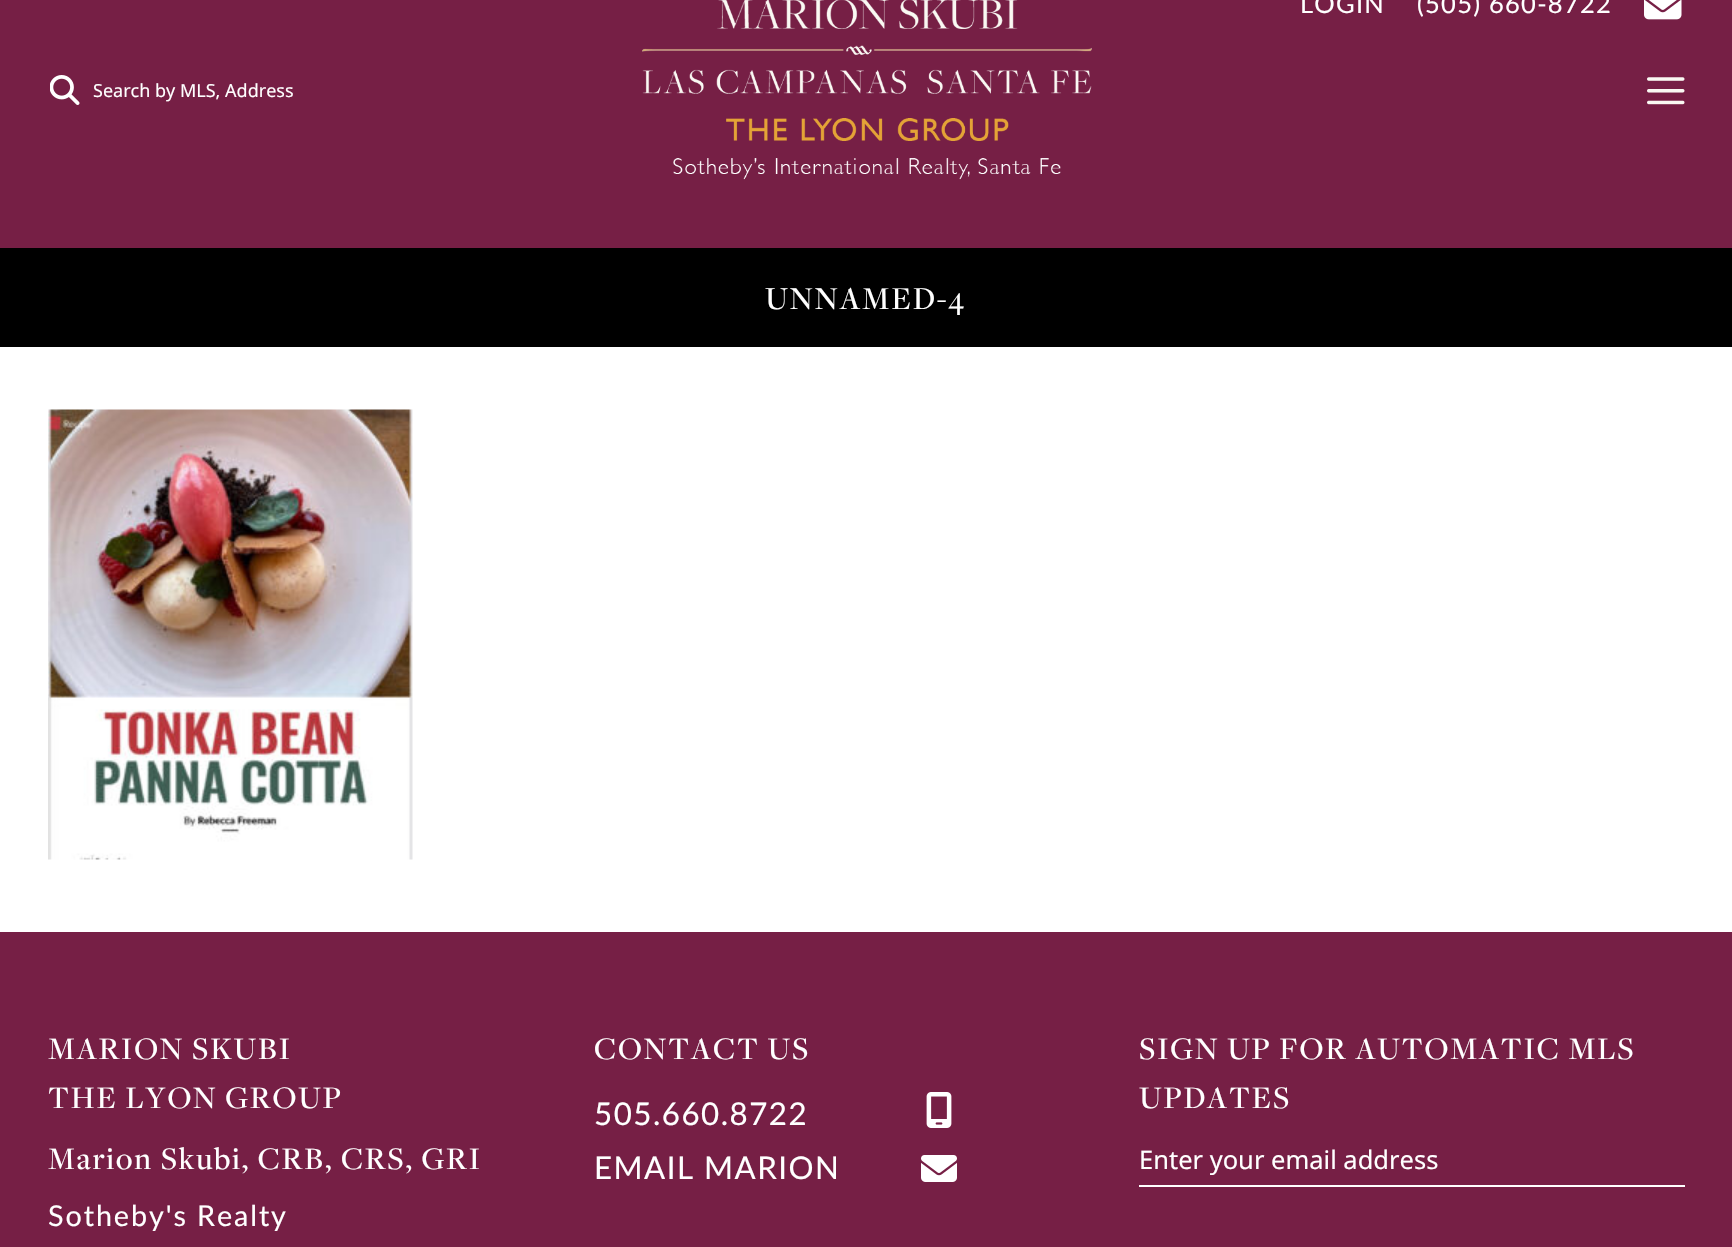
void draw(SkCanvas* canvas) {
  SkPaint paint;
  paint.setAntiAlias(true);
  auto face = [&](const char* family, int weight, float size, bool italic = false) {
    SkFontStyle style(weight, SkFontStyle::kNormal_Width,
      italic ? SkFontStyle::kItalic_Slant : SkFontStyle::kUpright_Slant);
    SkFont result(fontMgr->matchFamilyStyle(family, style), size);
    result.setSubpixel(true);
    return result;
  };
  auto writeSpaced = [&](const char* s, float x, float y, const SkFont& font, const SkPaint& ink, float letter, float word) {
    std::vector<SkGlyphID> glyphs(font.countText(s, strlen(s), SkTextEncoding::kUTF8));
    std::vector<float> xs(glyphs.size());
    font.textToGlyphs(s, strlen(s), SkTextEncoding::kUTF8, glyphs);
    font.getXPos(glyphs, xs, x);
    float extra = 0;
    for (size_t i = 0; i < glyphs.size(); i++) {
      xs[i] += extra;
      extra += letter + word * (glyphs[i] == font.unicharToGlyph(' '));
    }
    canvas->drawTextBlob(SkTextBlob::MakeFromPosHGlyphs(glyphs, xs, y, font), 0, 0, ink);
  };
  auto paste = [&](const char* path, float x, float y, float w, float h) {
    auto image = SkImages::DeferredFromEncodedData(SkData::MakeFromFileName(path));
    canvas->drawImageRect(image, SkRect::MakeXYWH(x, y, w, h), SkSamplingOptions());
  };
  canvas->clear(0xffffffff);
  paint.setColor(0xff761f45);
  canvas->drawRect(SkRect::MakeXYWH(0, 0, 1732, 248), paint);
  paste("img/1.png", 642, 0, 450, 180);
  paste("img/2.png", 1644, 0, 38, 20);
  paste("img/3.png", 50, 75, 30, 30);
  paste("img/4.png", 1647, 77, 38, 28);
  paint.setColor(0xff000000);
  canvas->drawRect(SkRect::MakeXYWH(0, 248, 1732, 99), paint);
  paste("img/5.png", 48, 409, 365, 451);
  paint.setColor(0xff761f45);
  canvas->drawRect(SkRect::MakeXYWH(0, 932, 1732, 315), paint);
  paste("img/6.png", 926, 1092, 26, 36);
  paste("img/7.png", 921, 1155, 36, 27);
  paint.setColor(0xffffffff);
  canvas->drawRect(SkRect::MakeXYWH(1139, 1185, 546, 2), paint);
  auto f0 = face("Lato", 400, 25.5f);
  writeSpaced("LOGIN", 1300, 13, f0, paint, 1.25f, 0);
  writeSpaced("(505) 660-8722", 1417, 13, f0, paint, 1.25f, 0);
  auto f1 = face("Noto Sans", 400, 18);
  canvas->drawString("Search by MLS, Address", 93, 97, f1, paint);
  auto f2 = face("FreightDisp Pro", 500, 33);
  writeSpaced("UNNAMED-4", 765, 309, f2, paint, 1.9f, 0);
  auto f3 = face("FreightDisp Pro", 500, 32.4f);
  {
    const struct { const char* s; float x, y; } items[] = {
      {"MARION SKUBI", 48, 1059},
      {"THE LYON GROUP", 48, 1108},
      {"Marion Skubi, CRB, CRS, GRI", 48, 1169},
    };
    for (auto [s, x, y] : items) {
      writeSpaced(s, x, y, f3, paint, 1.9f, 0);
    }
  }
  auto f4 = face("Lato", 400, 28.75f);
  writeSpaced("Sotheby's Realty", 48, 1226, f4, paint, 1.9f, 0);
  writeSpaced("CONTACT US", 594, 1059, f3, paint, 1.9f, 0);
  auto f5 = face("Lato", 400, 31.25f);
  writeSpaced("505.660.8722", 594, 1125, f5, paint, 1.5f, 0);
  writeSpaced("EMAIL MARION", 594, 1179, f5, paint, 1.5f, 0);
  writeSpaced("SIGN UP FOR AUTOMATIC MLS", 1139, 1059, f3, paint, 1.9f, 0);
  writeSpaced("UPDATES", 1139, 1108, f3, paint, 1.9f, 0);
  auto f6 = face("Noto Sans", 400, 25.5f);
  canvas->drawString("Enter your email address", 1139, 1169, f6, paint);
}
